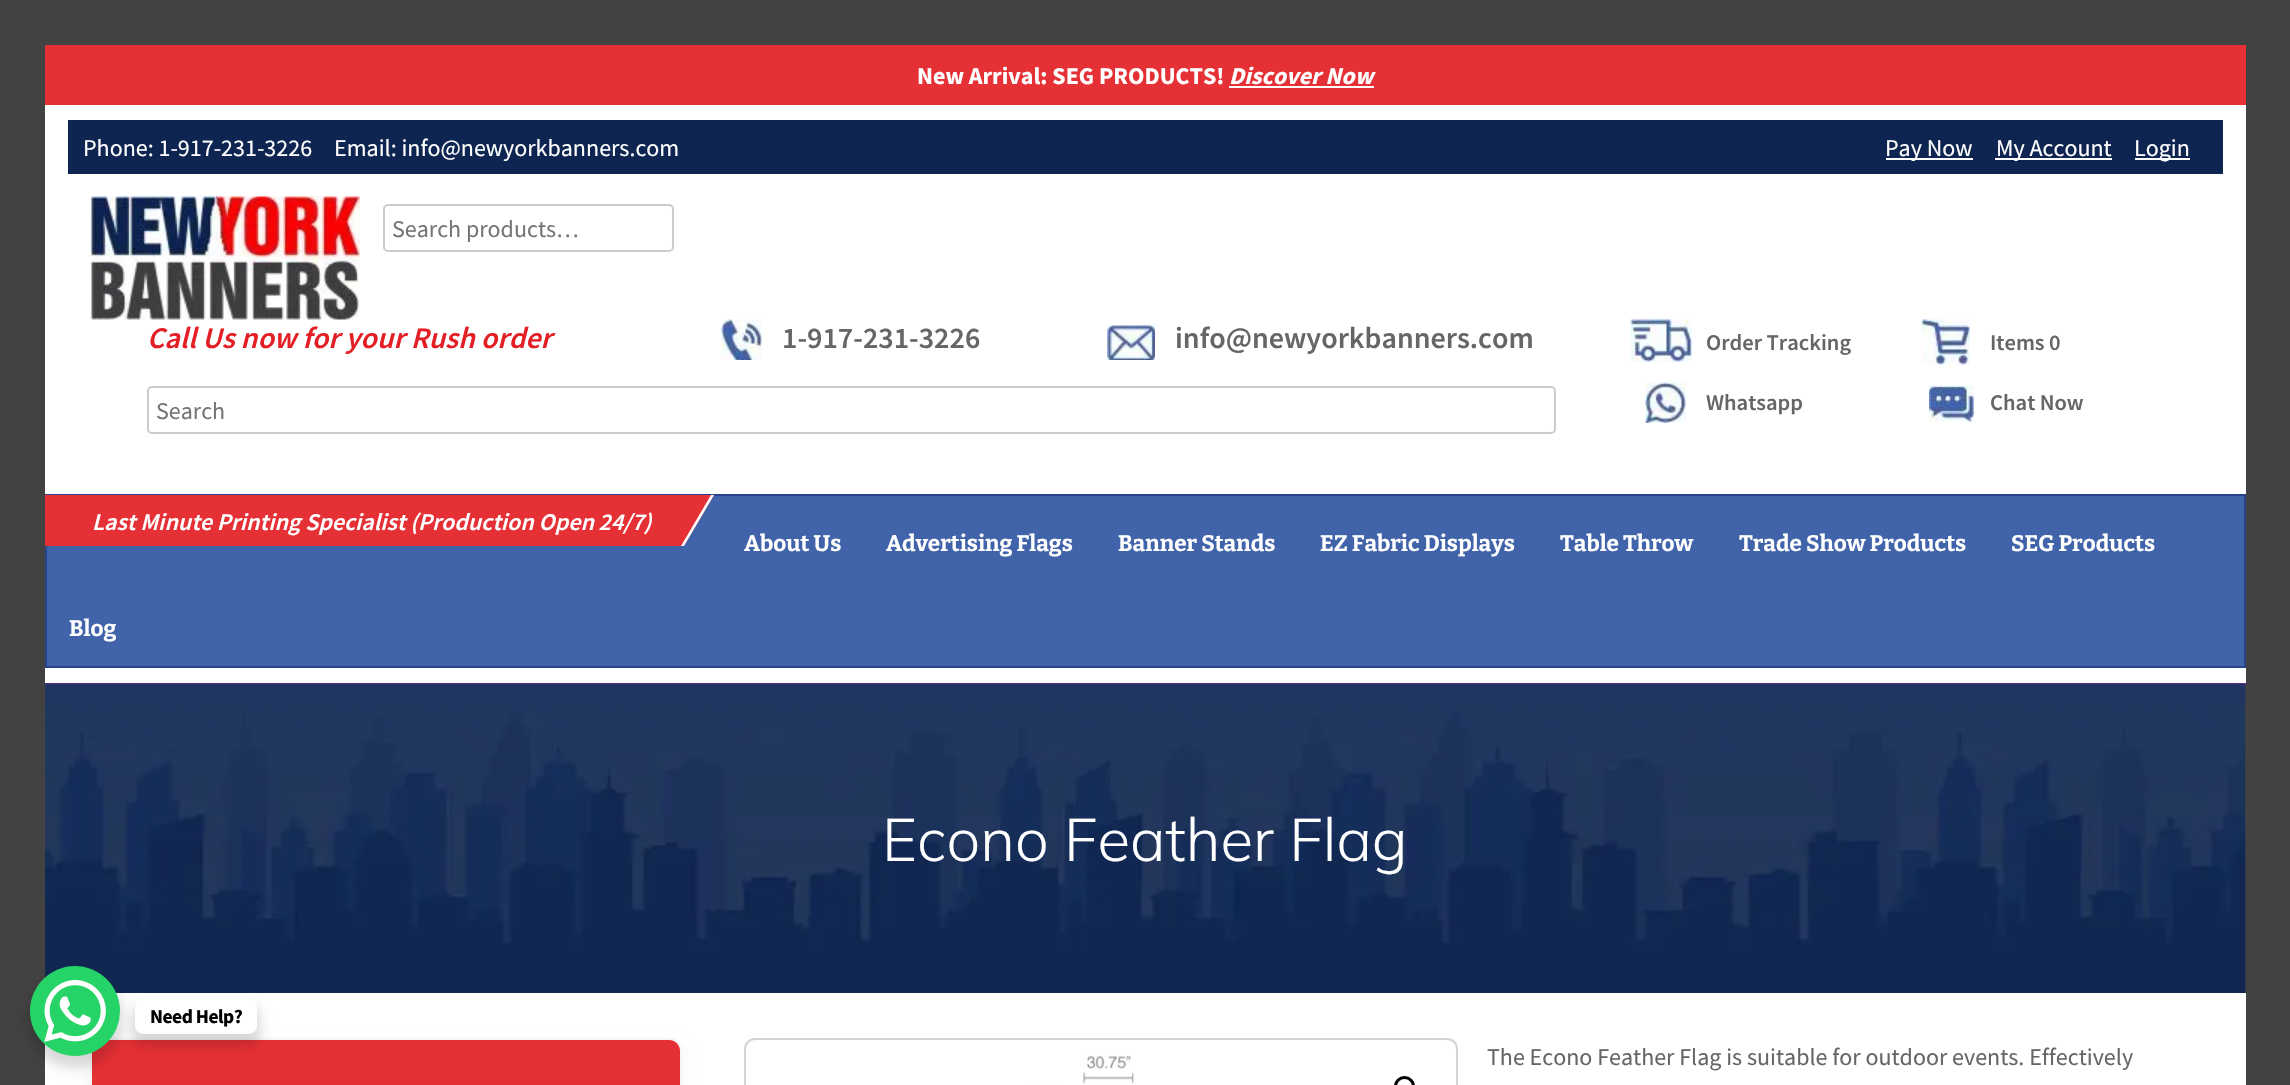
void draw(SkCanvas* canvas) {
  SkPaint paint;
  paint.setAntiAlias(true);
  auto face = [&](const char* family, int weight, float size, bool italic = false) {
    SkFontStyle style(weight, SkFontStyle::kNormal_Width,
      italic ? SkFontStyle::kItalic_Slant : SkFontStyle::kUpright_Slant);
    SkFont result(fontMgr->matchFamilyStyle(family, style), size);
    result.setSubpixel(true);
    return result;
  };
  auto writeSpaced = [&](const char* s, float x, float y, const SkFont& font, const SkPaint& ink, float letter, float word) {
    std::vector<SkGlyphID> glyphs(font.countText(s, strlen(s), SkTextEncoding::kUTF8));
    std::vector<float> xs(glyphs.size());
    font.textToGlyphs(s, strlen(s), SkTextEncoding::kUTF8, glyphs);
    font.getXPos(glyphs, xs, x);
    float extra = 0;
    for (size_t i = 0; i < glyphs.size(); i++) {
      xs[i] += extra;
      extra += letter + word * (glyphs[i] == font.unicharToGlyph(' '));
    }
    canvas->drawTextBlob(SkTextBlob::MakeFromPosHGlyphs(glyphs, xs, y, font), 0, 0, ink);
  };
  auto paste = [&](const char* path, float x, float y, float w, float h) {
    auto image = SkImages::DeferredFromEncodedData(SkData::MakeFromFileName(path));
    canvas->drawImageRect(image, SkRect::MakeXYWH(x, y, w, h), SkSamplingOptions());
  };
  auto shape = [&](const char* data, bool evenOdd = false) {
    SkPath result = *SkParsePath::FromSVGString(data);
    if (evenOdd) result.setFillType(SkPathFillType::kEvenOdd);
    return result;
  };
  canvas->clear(0xff424242);
  {
    const struct { float x, y, w, h; SkColor color; } items[] = {
      {45, 45, 2201, 60, 0xffe53035},
      {1229, 86, 145, 2, 0xffffffff},
      {45, 105, 2201, 578, 0xffffffff},
      {45, 683, 2201, 2, 0xff5d3085},
      {68, 120, 2155, 54, 0xff0e2551},
      {1886, 158, 87, 2, 0xffffffff},
      {1995, 158, 117, 2, 0xffffffff},
      {2135, 158, 55, 2, 0xffffffff},
    };
    for (auto [x, y, w, h, color] : items) {
      paint.setColor(color);
      canvas->drawRect(SkRect::MakeXYWH(x, y, w, h), paint);
    }
  }
  paste("img/1.png", 90, 196, 270, 124);
  paint.setStroke(true);
  paint.setStrokeWidth(2);
  paint.setColor(0xffcccccc);
  canvas->drawRoundRect(SkRect::MakeXYWH(384, 205, 289, 46), 4, 4, paint);
  paste("img/2.png", 721, 319, 41, 41);
  paste("img/3.png", 1107, 325, 48, 35);
  canvas->drawRoundRect(SkRect::MakeXYWH(148, 387, 1407, 46), 4, 4, paint);
  paste("img/4.png", 1630, 319, 62, 43);
  paste("img/5.png", 1921, 319, 49, 46);
  paste("img/6.png", 1645, 382, 41, 41);
  paste("img/7.png", 1929, 385, 45, 37);
  paint.setStroke(false);
  paint.setColor(0xff4163aa);
  canvas->drawRect(SkRect::MakeXYWH(46, 495, 2199, 172), paint);
  paint.setStroke(true);
  paint.setColor(0xff2a438d);
  canvas->drawRect(SkRect::MakeXYWH(46, 495, 2199, 172), paint);
  canvas->save();
  canvas->clipRect(SkRect::MakeXYWH(45, 105, 2201, 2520));
  paint.setStroke(false);
  paint.setColor(0xffe53035);
  canvas->drawPath(shape("M39 495H714L684 546H9Z"), paint);
  canvas->restore();
  paint.setColor(0xffffffff);
  canvas->drawPath(shape("M711 495H714L684 546H681Z"), paint);
  paste("img/8.png", 45, 684, 2201, 309);
  canvas->drawRect(SkRect::MakeXYWH(45, 993, 2201, 92), paint);
  paint.setColor(0x0d000000);
  paint.setMaskFilter(SkMaskFilter::MakeBlur(kNormal_SkBlurStyle, 7.5f));
  canvas->drawRoundRect(SkRect::MakeXYWH(90, 1046, 591, 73), 11, 11, paint);
  paint.setMaskFilter(nullptr);
  paint.setStroke(true);
  paint.setColor(0xfff4f4f4);
  canvas->drawRoundRect(SkRect::MakeXYWH(91, 1039, 589, 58), 10, 10, paint);
  paint.setStroke(false);
  paint.setColor(0xffe53035);
  canvas->drawRoundRect(SkRect::MakeXYWH(92, 1040, 588, 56), 11, 11, paint);
  paint.setStroke(true);
  paint.setColor(0xffd4d4d4);
  canvas->drawRoundRect(SkRect::MakeXYWH(745, 1039, 712, 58), 10, 10, paint);
  paste("img/9.png", 1031, 1055, 104, 30);
  paint.setStrokeWidth(3);
  paint.setColor(0xff000000);
  canvas->drawCircle(1404.5f, 1086.5f, 9, paint);
  paint.setStroke(false);
  paint.setColor(0x26000000);
  paint.setMaskFilter(SkMaskFilter::MakeBlur(kNormal_SkBlurStyle, 6));
  canvas->drawRoundRect(SkRect::MakeXYWH(27, 972, 96, 96), 48, 48, paint);
  paint.setMaskFilter(nullptr);
  paint.setColor(0xff25d366);
  canvas->drawCircle(75, 1011, 45, paint);
  paste("img/10.png", 44, 980, 62, 62);
  paint.setColor(0x26000000);
  paint.setMaskFilter(SkMaskFilter::MakeBlur(kNormal_SkBlurStyle, 6));
  canvas->drawRoundRect(SkRect::MakeXYWH(132, 1005, 128, 41), 11, 11, paint);
  paint.setMaskFilter(nullptr);
  paint.setColor(0xffffffff);
  canvas->drawRoundRect(SkRect::MakeXYWH(135, 999, 122, 35), 8, 8, paint);
  auto f0 = face("Source Sans Pro", 700, 24);
  canvas->drawString("New Arrival: SEG PRODUCTS!", 917, 84, f0, paint);
  auto f1 = face("Source Sans Pro", 700, 24, true);
  canvas->drawString("Discover Now", 1229, 84, f1, paint);
  auto f2 = face("Source Sans Pro", 400, 24);
  {
    const struct { const char* s; float x, y; } items[] = {
      {"Phone: 1-917-231-3226", 83, 156},
      {"Email: info@newyorkbanners.com", 334, 156},
      {"Pay Now", 1885, 156},
      {"My Account", 1996, 156},
      {"Login", 2134, 156},
    };
    for (auto [s, x, y] : items) {
      canvas->drawString(s, x, y, f2, paint);
    }
  }
  paint.setColor(0xff757575);
  canvas->drawString("Search products…", 392, 237, f2, paint);
  auto f3 = face("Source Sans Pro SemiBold", 600, 30, true);
  paint.setColor(0xffe31e25);
  canvas->drawString("Call Us now for your Rush order", 147, 348, f3, paint);
  auto f4 = face("Source Sans Pro SemiBold", 600, 30);
  paint.setColor(0xff666666);
  canvas->drawString("1-917-231-3226", 782, 348, f4, paint);
  canvas->drawString("info@newyorkbanners.com", 1175, 348, f4, paint);
  paint.setColor(0xff757575);
  canvas->drawString("Search", 156, 419, f2, paint);
  auto f5 = face("Source Sans Pro SemiBold", 600, 22.5f);
  paint.setColor(0xff666666);
  {
    const struct { const char* s; float x, y; } items[] = {
      {"Order Tracking", 1706, 350},
      {"Items 0", 1990, 350},
      {"Whatsapp", 1706, 410},
      {"Chat Now", 1990, 410},
    };
    for (auto [s, x, y] : items) {
      canvas->drawString(s, x, y, f5, paint);
    }
  }
  auto f6 = face("Source Sans Pro SemiBold", 600, 24, true);
  paint.setColor(0xffffffff);
  canvas->drawString("Last Minute Printing Specialist (Production Open 24/7)", 92, 530, f6, paint);
  auto f7 = face("Bitter", 700, 22.5f);
  {
    const struct { const char* s; float x, y; } items[] = {
      {"About Us", 744, 551},
      {"Advertising Flags", 886, 551},
      {"Banner Stands", 1118, 551},
      {"EZ Fabric Displays", 1320, 551},
      {"Table Throw", 1560, 551},
      {"Trade Show Products", 1739, 551},
      {"SEG Products", 2011, 551},
      {"Blog", 69, 636},
    };
    for (auto [s, x, y] : items) {
      canvas->drawString(s, x, y, f7, paint);
    }
  }
  auto f8 = face("Mulish", 300, 60);
  canvas->drawString("Econo Feather Flag", 882, 861, f8, paint);
  paint.setColor(0xff666666);
  canvas->drawString("The Econo Feather Flag is suitable for outdoor events. Effectively", 1487, 1065, f2, paint);
  auto f9 = face("Source Sans Pro", 700, 19.5f);
  paint.setColor(0xff000000);
  writeSpaced("Need Help?", 150, 1023, f9, paint, -0.5f, 0);
}
